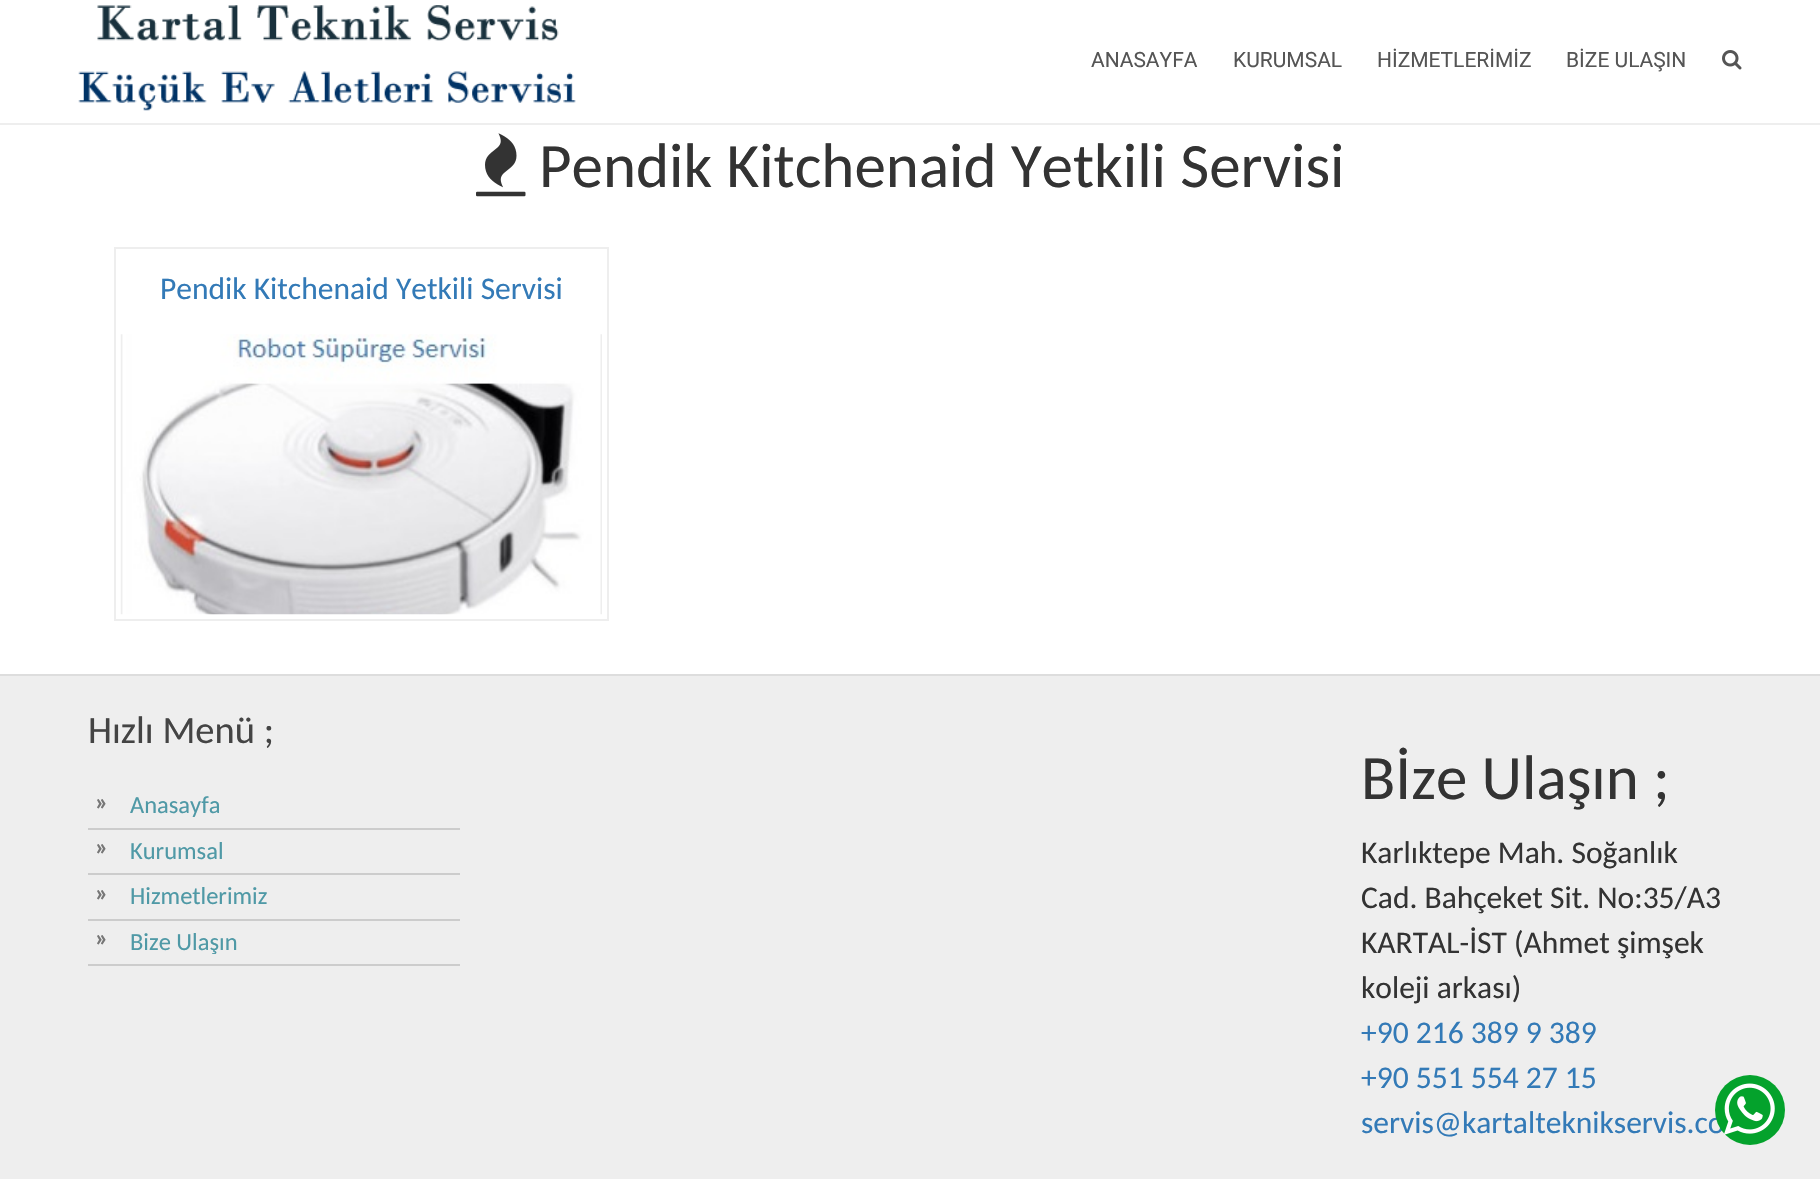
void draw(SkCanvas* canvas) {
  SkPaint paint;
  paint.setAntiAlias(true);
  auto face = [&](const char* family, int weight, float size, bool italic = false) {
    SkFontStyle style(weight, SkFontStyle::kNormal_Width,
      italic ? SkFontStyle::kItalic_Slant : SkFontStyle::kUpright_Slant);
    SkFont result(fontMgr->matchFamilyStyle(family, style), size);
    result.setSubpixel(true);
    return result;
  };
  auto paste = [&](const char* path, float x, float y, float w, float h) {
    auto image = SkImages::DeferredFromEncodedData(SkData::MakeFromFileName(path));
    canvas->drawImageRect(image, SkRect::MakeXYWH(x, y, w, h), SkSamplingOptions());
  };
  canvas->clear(0xffffffff);
  paint.setColor(0xffeeeeee);
  canvas->drawRect(SkRect::MakeXYWH(0, 123, 1820, 2), paint);
  paste("img/1.png", 78, 5, 498, 106);
  paste("img/2.png", 1722, 50, 20, 20);
  paste("img/3.png", 476, 133, 50, 64);
  paint.setStroke(true);
  paint.setStrokeWidth(2);
  canvas->drawRect(SkRect::MakeXYWH(115, 248, 493, 372), paint);
  paste("img/4.png", 120, 334, 482, 281);
  paint.setStroke(false);
  {
    const struct { float x, y, w, h; SkColor color; } items[] = {
      {0, 676, 1820, 503, 0xffeeeeee},
      {0, 674, 1820, 2, 0xffdddddd},
      {88, 828, 372, 2, 0xffcccccc},
      {88, 873, 372, 2, 0xffcccccc},
      {88, 919, 372, 2, 0xffcccccc},
      {88, 964, 372, 2, 0xffcccccc},
    };
    for (auto [x, y, w, h, color] : items) {
      paint.setColor(color);
      canvas->drawRect(SkRect::MakeXYWH(x, y, w, h), paint);
    }
  }
  auto f0 = face("Roboto", 400, 21);
  paint.setColor(0xff555555);
  {
    const struct { const char* s; float x, y; } items[] = {
      {"ANASAYFA", 1091, 67},
      {"KURUMSAL", 1233, 67},
      {"HİZMETLERİMİZ", 1377, 67},
      {"BİZE ULAŞIN", 1566, 67},
    };
    for (auto [s, x, y] : items) {
      canvas->drawString(s, x, y, f0, paint);
    }
  }
  auto f1 = face("Carlito", 400, 63);
  paint.setColor(0xff333333);
  canvas->drawString("Pendik Kitchenaid Yetkili Servisi", 539, 187, f1, paint);
  auto f2 = face("Carlito", 400, 31.5f);
  paint.setColor(0xff337ab7);
  canvas->drawString("Pendik Kitchenaid Yetkili Servisi", 160, 299, f2, paint);
  auto f3 = face("Carlito", 400, 38.5f);
  paint.setColor(0xff444444);
  canvas->drawString("Hızlı Menü ;", 88, 743, f3, paint);
  auto f4 = face("Carlito", 700, 24.5f);
  paint.setColor(0xff777777);
  canvas->drawString("»", 95, 810, f4, paint);
  auto f5 = face("Carlito", 400, 24.5f);
  paint.setColor(0xff4f99a6);
  canvas->drawString("Anasayfa", 130, 813, f5, paint);
  paint.setColor(0xff777777);
  canvas->drawString("»", 95, 855, f4, paint);
  paint.setColor(0xff4f99a6);
  canvas->drawString("Kurumsal", 130, 859, f5, paint);
  paint.setColor(0xff777777);
  canvas->drawString("»", 95, 901, f4, paint);
  paint.setColor(0xff4f99a6);
  canvas->drawString("Hizmetlerimiz", 130, 904, f5, paint);
  paint.setColor(0xff777777);
  canvas->drawString("»", 95, 946, f4, paint);
  paint.setColor(0xff4f99a6);
  canvas->drawString("Bize Ulaşın", 130, 950, f5, paint);
  paint.setColor(0xff333333);
  canvas->drawString("Bİze Ulaşın ;", 1361, 799, f1, paint);
  {
    const struct { const char* s; float x, y; } items[] = {
      {"Karlıktepe Mah. Soğanlık", 1361, 863},
      {"Cad. Bahçeket Sit. No:35/A3", 1361, 908},
      {"KARTAL-İST (Ahmet şimşek", 1361, 953},
      {"koleji arkası)", 1361, 998},
    };
    for (auto [s, x, y] : items) {
      canvas->drawString(s, x, y, f2, paint);
    }
  }
  paint.setColor(0xff337ab7);
  {
    const struct { const char* s; float x, y; } items[] = {
      {"+90 216 389 9 389", 1361, 1043},
      {"+90 551 554 27 15", 1361, 1088},
      {"servis@kartalteknikservis.co", 1361, 1133},
    };
    for (auto [s, x, y] : items) {
      canvas->drawString(s, x, y, f2, paint);
    }
  }
  paint.setColor(0xff04a22c);
  canvas->drawCircle(1750, 1110, 35, paint);
  paste("img/5.png", 1724, 1083, 51, 52);
}
